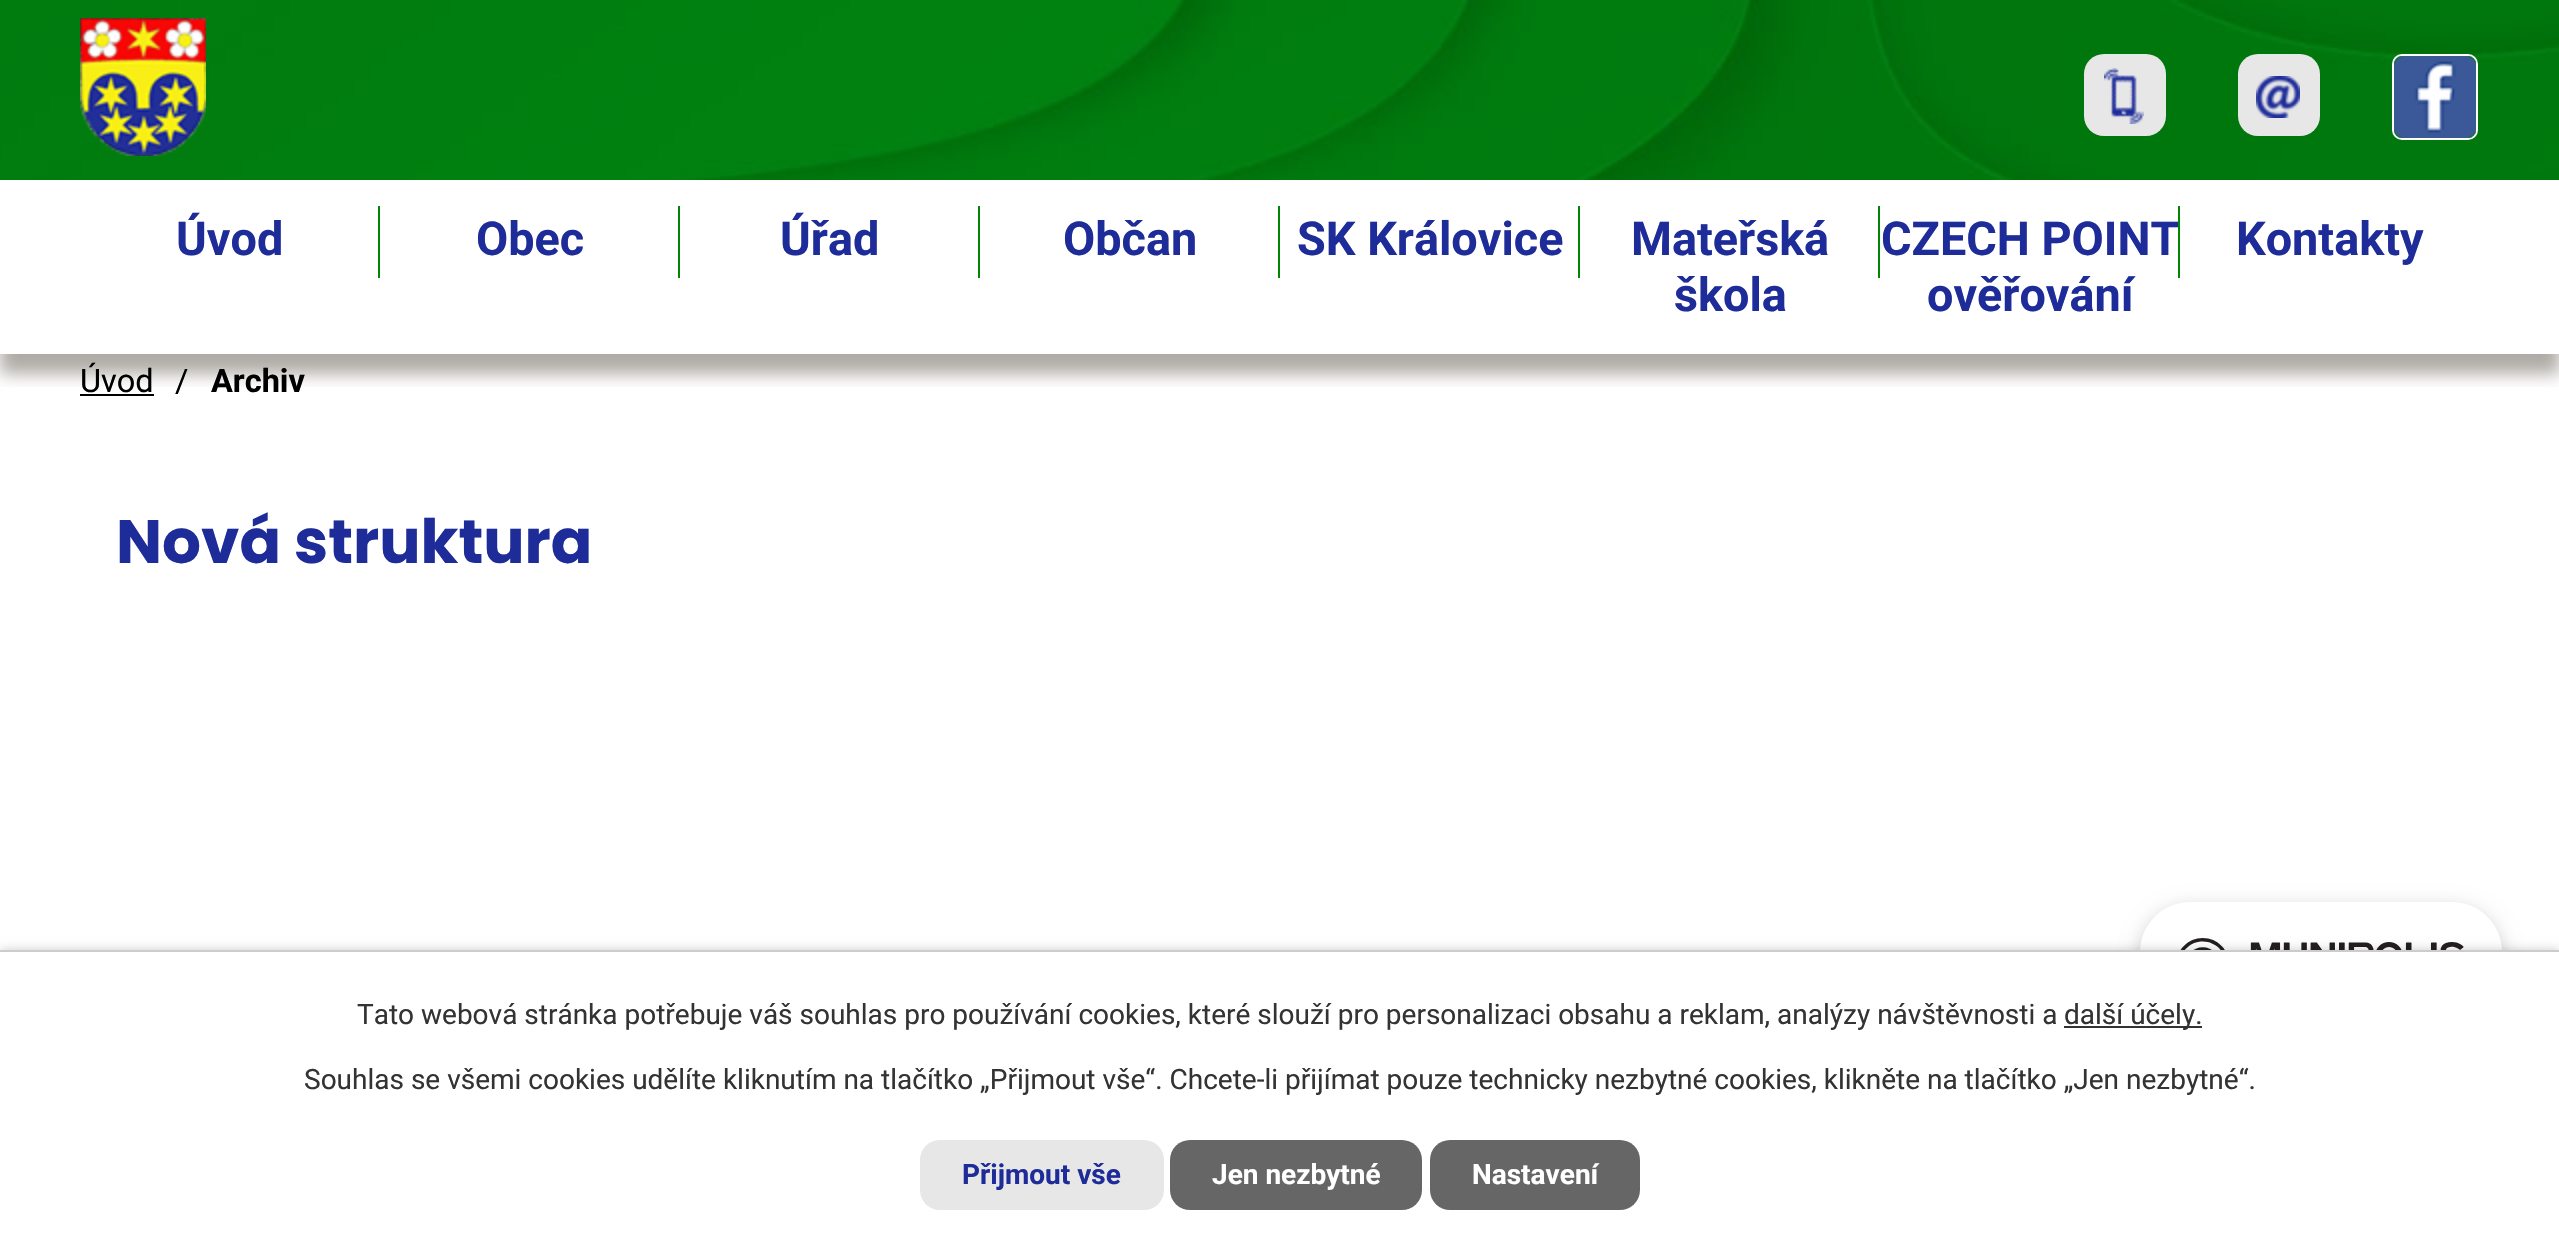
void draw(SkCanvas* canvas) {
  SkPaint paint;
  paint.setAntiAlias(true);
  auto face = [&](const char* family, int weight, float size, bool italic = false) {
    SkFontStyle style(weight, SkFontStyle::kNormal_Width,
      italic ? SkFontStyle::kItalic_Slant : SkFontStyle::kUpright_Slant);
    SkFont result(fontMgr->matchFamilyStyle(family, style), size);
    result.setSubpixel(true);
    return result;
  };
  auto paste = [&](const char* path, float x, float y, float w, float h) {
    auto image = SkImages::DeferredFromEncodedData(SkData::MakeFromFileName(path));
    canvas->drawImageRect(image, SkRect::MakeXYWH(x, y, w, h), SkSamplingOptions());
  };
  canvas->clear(0xffffffff);
  canvas->save();
  canvas->clipRect(SkRect::MakeXYWH(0, 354, 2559, 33));
  paint.setColor(0x66372d20);
  paint.setMaskFilter(SkMaskFilter::MakeBlur(kNormal_SkBlurStyle, 8));
  canvas->drawRect(SkRect::MakeXYWH(0, 200, 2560, 174), paint);
  paint.setMaskFilter(nullptr);
  canvas->restore();
  paste("img/1.png", 0, 0, 2559, 180);
  paste("img/2.png", 80, 18, 126, 138);
  paint.setColor(0xffe7e7e7);
  canvas->drawRoundRect(SkRect::MakeXYWH(2084, 54, 82, 82), 20, 20, paint);
  paste("img/3.png", 2104, 68, 40, 56);
  canvas->drawRoundRect(SkRect::MakeXYWH(2238, 54, 82, 82), 20, 20, paint);
  paste("img/4.png", 2256, 76, 44, 42);
  paint.setStroke(true);
  paint.setStrokeWidth(2);
  paint.setColor(0xffffffff);
  canvas->drawRoundRect(SkRect::MakeXYWH(2393, 55, 84, 84), 9, 9, paint);
  paste("img/5.png", 2394, 56, 82, 82);
  paint.setStroke(false);
  paint.setColor(0x33000000);
  paint.setMaskFilter(SkMaskFilter::MakeBlur(kNormal_SkBlurStyle, 10));
  canvas->drawRoundRect(SkRect::MakeXYWH(2140, 908, 362, 256), 50, 50, paint);
  paint.setMaskFilter(nullptr);
  paint.setColor(0xffffffff);
  canvas->drawRoundRect(SkRect::MakeXYWH(2140, 902, 362, 256), 50, 50, paint);
  paste("img/6.png", 2180, 938, 284, 12);
  {
    const struct { float x, y, w, h; SkColor color; } items[] = {
      {378, 206, 2, 72, 0xff018503},
      {678, 206, 2, 72, 0xff018503},
      {978, 206, 2, 72, 0xff018503},
      {1278, 206, 2, 72, 0xff018503},
      {1578, 206, 2, 72, 0xff018503},
      {1878, 206, 2, 72, 0xff018503},
      {80, 394, 74, 2, 0xff000000},
    };
    for (auto [x, y, w, h, color] : items) {
      paint.setColor(color);
      canvas->drawRect(SkRect::MakeXYWH(x, y, w, h), paint);
    }
  }
  paint.setColor(0x33000000);
  paint.setMaskFilter(SkMaskFilter::MakeBlur(kNormal_SkBlurStyle, 5));
  canvas->drawRect(SkRect::MakeXYWH(0, 950, 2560, 298), paint);
  paint.setMaskFilter(nullptr);
  {
    const struct { float x, y, w, h; SkColor color; } items[] = {
      {0, 952, 2559, 296, 0xffffffff},
      {0, 950, 2559, 2, 0xffcccccc},
      {2064, 1026, 138, 2, 0xff333333},
    };
    for (auto [x, y, w, h, color] : items) {
      paint.setColor(color);
      canvas->drawRect(SkRect::MakeXYWH(x, y, w, h), paint);
    }
  }
  paint.setColor(0xffe7e7e7);
  canvas->drawRoundRect(SkRect::MakeXYWH(920, 1140, 244, 70), 20, 20, paint);
  paint.setColor(0xff666666);
  canvas->drawRoundRect(SkRect::MakeXYWH(1170, 1140, 252, 70), 20, 20, paint);
  canvas->drawRoundRect(SkRect::MakeXYWH(1430, 1140, 210, 70), 20, 20, paint);
  auto f0 = face("Roboto", 700, 46.75f);
  paint.setColor(0xff1e2c99);
  {
    const struct { const char* s; float x, y; } items[] = {
      {"Úvod", 176, 255},
      {"Obec", 476, 255},
      {"Úřad", 780, 255},
      {"Občan", 1063, 255},
      {"SK Královice", 1297, 255},
      {"Mateřská", 1631, 255},
      {"škola", 1674, 311},
      {"CZECH POINT", 1881, 255},
    };
    for (auto [s, x, y] : items) {
      canvas->drawString(s, x, y, f0, paint);
    }
  }
  paint.setColor(0xff018503);
  canvas->drawRect(SkRect::MakeXYWH(2178, 206, 2, 72), paint);
  paint.setColor(0xff1e2c99);
  canvas->drawString("ověřování", 1927, 311, f0, paint);
  canvas->drawString("Kontakty", 2236, 255, f0, paint);
  auto f1 = face("Roboto", 400, 32.5f);
  paint.setColor(0xff000000);
  canvas->drawString("Úvod", 80, 392, f1, paint);
  canvas->drawString("/", 175, 392, f1, paint);
  auto f2 = face("Roboto", 700, 32.5f);
  canvas->drawString("Archiv", 211, 392, f2, paint);
  auto f3 = face("Poppins", 700, 61.25f);
  paint.setColor(0xff1e2c99);
  canvas->drawString("Nová struktura", 116, 563, f3, paint);
  auto f4 = face("Roboto", 400, 28);
  paint.setColor(0xff333333);
  {
    const struct { const char* s; float x, y; } items[] = {
      {"Tato webová stránka potřebuje váš souhlas pro používání cookies, které slouží pro personalizaci obsahu a reklam, analýzy návštěvnosti a", 357, 1024},
      {"další účely.", 2064, 1024},
      {"Souhlas se všemi cookies udělíte kliknutím na tlačítko „Přijmout vše“. Chcete-li přijímat pouze technicky nezbytné cookies, klikněte na tlačítko „Jen nezbytné“.", 304, 1089},
    };
    for (auto [s, x, y] : items) {
      canvas->drawString(s, x, y, f4, paint);
    }
  }
  auto f5 = face("Roboto", 700, 28);
  paint.setColor(0xff1e2c99);
  canvas->drawString("Přijmout vše", 962, 1184, f5, paint);
  paint.setColor(0xffffffff);
  canvas->drawString("Jen nezbytné", 1212, 1184, f5, paint);
  canvas->drawString("Nastavení", 1472, 1184, f5, paint);
}
